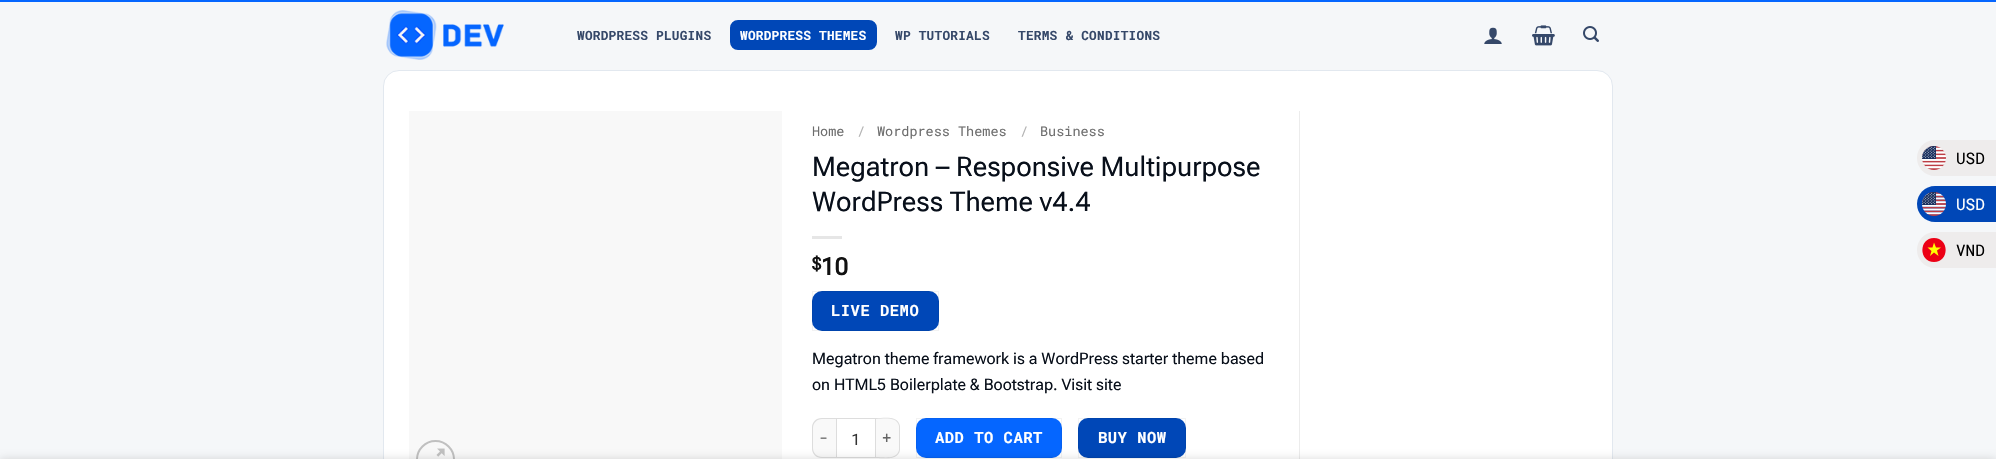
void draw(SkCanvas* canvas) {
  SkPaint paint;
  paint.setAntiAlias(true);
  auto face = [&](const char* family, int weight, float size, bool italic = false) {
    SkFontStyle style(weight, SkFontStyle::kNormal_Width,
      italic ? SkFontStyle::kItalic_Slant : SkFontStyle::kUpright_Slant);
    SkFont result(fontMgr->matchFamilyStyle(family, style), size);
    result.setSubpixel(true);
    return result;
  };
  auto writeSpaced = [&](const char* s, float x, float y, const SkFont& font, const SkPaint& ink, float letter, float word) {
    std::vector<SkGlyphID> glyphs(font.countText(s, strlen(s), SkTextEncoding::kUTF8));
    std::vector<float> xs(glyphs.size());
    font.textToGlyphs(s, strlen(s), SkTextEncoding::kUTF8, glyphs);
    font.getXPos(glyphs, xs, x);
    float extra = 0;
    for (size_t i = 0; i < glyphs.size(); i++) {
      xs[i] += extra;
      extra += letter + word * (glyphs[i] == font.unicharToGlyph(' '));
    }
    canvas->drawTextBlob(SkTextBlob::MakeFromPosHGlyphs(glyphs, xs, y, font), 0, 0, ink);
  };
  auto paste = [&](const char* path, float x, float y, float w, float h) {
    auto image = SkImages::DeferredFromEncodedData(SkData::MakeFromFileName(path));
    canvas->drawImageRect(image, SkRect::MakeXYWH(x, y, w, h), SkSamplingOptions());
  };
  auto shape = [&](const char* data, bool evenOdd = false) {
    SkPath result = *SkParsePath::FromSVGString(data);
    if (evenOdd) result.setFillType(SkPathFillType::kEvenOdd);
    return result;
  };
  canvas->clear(0xfff5f7f9);
  paint.setColor(0xff0566ff);
  canvas->drawRect(SkRect::MakeXYWH(0, 0, 1996, 2), paint);
  paste("img/1.png", 386, 10, 118, 50);
  paint.setColor(0xff0047b7);
  canvas->drawRoundRect(SkRect::MakeXYWH(728, 18, 151, 34), 10, 10, paint);
  paint.setStroke(true);
  paint.setStrokeWidth(4);
  paint.setColor(0xfff5f7f9);
  canvas->drawRoundRect(SkRect::MakeXYWH(728, 18, 151, 34), 10, 10, paint);
  paste("img/2.png", 1484, 27, 18, 17);
  paste("img/3.png", 1532, 25, 23, 21);
  paste("img/4.png", 1583, 26, 16, 16);
  paint.setStroke(false);
  paint.setColor(0xffffffff);
  canvas->drawRoundRect(SkRect::MakeXYWH(383.5f, 70.5f, 1229, 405), 15.5f, 15.5f, paint);
  paint.setStroke(true);
  paint.setStrokeWidth(1);
  paint.setColor(0xffe2e8ef);
  canvas->drawRoundRect(SkRect::MakeXYWH(383.5f, 70.5f, 1229, 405), 15.5f, 15.5f, paint);
  paint.setStroke(false);
  paint.setColor(0xfff8f8f8);
  canvas->drawRect(SkRect::MakeXYWH(409, 111, 373, 348), paint);
  paint.setStroke(true);
  paint.setStrokeWidth(2);
  paint.setColor(0xffc0c0c0);
  canvas->drawCircle(435.5f, 459.5f, 18.5f, paint);
  paste("img/5.png", 436, 448, 9, 9);
  paint.setStroke(false);
  paint.setColor(0xffececec);
  canvas->drawRect(SkRect::MakeXYWH(1299, 111, 1, 348), paint);
  paint.setColor(0xffe6e6e6);
  canvas->drawRect(SkRect::MakeXYWH(812, 236, 30, 3), paint);
  paint.setColor(0xff0047b7);
  canvas->drawRoundRect(SkRect::MakeXYWH(812, 291, 127, 40), 10, 10, paint);
  paint.setStroke(true);
  paint.setStrokeWidth(1);
  paint.setColor(0x0d000000);
  canvas->drawRect(SkRect::MakeXYWH(812.5f, 291.5f, 126, 39), paint);
  paint.setStroke(false);
  paint.setColor(0xfff9f9f9);
  canvas->drawPath(shape("M822 418H836V458H822C816.5 458 812 453.5 812 448V428C812 422.5 816.5 418 822 418Z"), paint);
  paint.setColor(0xffdddddd);
  canvas->drawPath(shape("M822 418H836V458H822C816 458 812 454 812 448V428C812 422 816 418 822 418ZM822 419H836V457H822C817 457 813 453 813 448V428C813 423 817 419 822 419Z", true), paint);
  paint.setStroke(true);
  canvas->drawRect(SkRect::MakeXYWH(836.5f, 418.5f, 39, 39), paint);
  paint.setStroke(false);
  paint.setColor(0xfff9f9f9);
  canvas->drawPath(shape("M876 418H890C895.5 418 900 422.5 900 428V448C900 453.5 895.5 458 890 458H876Z"), paint);
  paint.setColor(0xffdddddd);
  canvas->drawPath(shape("M876 418C884 418 898 415 900 426V450C898 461 884 458 876 458ZM876 419C883 419 897 416 899 426V450C897 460 883 457 876 457Z", true), paint);
  paint.setColor(0xff0566ff);
  canvas->drawRoundRect(SkRect::MakeXYWH(916, 418, 146, 40), 10, 10, paint);
  paint.setStroke(true);
  paint.setColor(0x0d000000);
  canvas->drawRect(SkRect::MakeXYWH(916.5f, 418.5f, 145, 39), paint);
  paint.setStroke(false);
  paint.setColor(0xff0047b7);
  canvas->drawRoundRect(SkRect::MakeXYWH(1078, 418, 108, 40), 10, 10, paint);
  paint.setStroke(true);
  paint.setColor(0x0d000000);
  canvas->drawRect(SkRect::MakeXYWH(1078.5f, 418.5f, 107, 39), paint);
  paint.setStroke(false);
  paint.setColor(0xffeeecec);
  canvas->drawPath(shape("M1935 140H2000V176H1935C1925 176 1917 168 1917 158C1917 148 1925 140 1935 140Z"), paint);
  paste("img/6.png", 1922, 146, 24, 24);
  paint.setColor(0xff0047b7);
  canvas->drawPath(shape("M1935 186H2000V222H1935C1925 222 1917 214 1917 204C1917 194 1925 186 1935 186Z"), paint);
  paste("img/7.png", 1922, 192, 24, 24);
  paint.setColor(0xffeeecec);
  canvas->drawPath(shape("M1935 232H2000V268H1935C1925 268 1917 260 1917 250C1917 240 1925 232 1935 232Z"), paint);
  paint.setColor(0xffec0015);
  canvas->drawPath(shape("M1934 238C1949.5 238 1949.5 262 1934 262C1918.5 262 1918.5 238 1934 238Z"), paint);
  paint.setColor(0xffffff00);
  canvas->drawPath(shape("M1938.5 256L1934 252.5L1930 256L1931.5 251L1927.5 247.5H1932.5L1934 242.5L1936 247.5H1941L1937 250.5Z", true), paint);
  paint.setColor(0x24000000);
  paint.setMaskFilter(SkMaskFilter::MakeBlur(kNormal_SkBlurStyle, 4.5f));
  canvas->drawRect(SkRect::MakeXYWH(0, 459, 1996, 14), paint);
  paint.setMaskFilter(nullptr);
  auto f0 = face("Roboto Mono", 700, 12.75f);
  paint.setColor(0xff354869);
  writeSpaced("WORDPRESS PLUGINS", 577, 40, f0, paint, 0.25f, 0);
  paint.setColor(0xffffffff);
  writeSpaced("WORDPRESS THEMES", 740, 40, f0, paint, 0.25f, 0);
  paint.setColor(0xff354869);
  writeSpaced("WP TUTORIALS", 895, 40, f0, paint, 0.25f, 0);
  writeSpaced("TERMS & CONDITIONS", 1018, 40, f0, paint, 0.25f, 0);
  auto f1 = face("Roboto Mono", 400, 13.5f);
  paint.setColor(0xff6e6e6e);
  canvas->drawString("Home", 812, 136, f1, paint);
  paint.setColor(0xffb2b2b2);
  canvas->drawString("/", 857, 136, f1, paint);
  paint.setColor(0xff6e6e6e);
  canvas->drawString("Wordpress Themes", 877, 136, f1, paint);
  paint.setColor(0xffb2b2b2);
  canvas->drawString("/", 1020, 136, f1, paint);
  paint.setColor(0xff6e6e6e);
  canvas->drawString("Business", 1040, 136, f1, paint);
  auto f2 = face("Roboto Flex", 400, 27.25f);
  paint.setColor(0xff080f1a);
  canvas->drawString("Megatron – Responsive Multipurpose", 812, 176, f2, paint);
  canvas->drawString("WordPress Theme v4.4", 812, 211, f2, paint);
  auto f3 = face("Roboto Flex", 700, 18);
  paint.setColor(0xff111111);
  canvas->drawString("$", 812, 270, f3, paint);
  auto f4 = face("Roboto Flex", 700, 24);
  canvas->drawString("10", 821, 275, f4, paint);
  auto f5 = face("Roboto Mono", 700, 15.5f);
  paint.setColor(0xffffffff);
  writeSpaced("LIVE DEMO", 831, 316, f5, paint, 0.5f, 0);
  auto f6 = face("Roboto Flex", 400, 16);
  paint.setColor(0xff080f1a);
  canvas->drawString("Megatron theme framework is a WordPress starter theme based", 812, 364, f6, paint);
  canvas->drawString("on HTML5 Boilerplate & Bootstrap. Visit site", 812, 390, f6, paint);
  auto f7 = face("Roboto Mono", 400, 15.5f);
  paint.setColor(0xff666666);
  writeSpaced("-", 819, 443, f7, paint, 0.5f, 0);
  auto f8 = face("Roboto Mono", 400, 16);
  paint.setColor(0xff333333);
  canvas->drawString("1", 851, 445, f8, paint);
  paint.setColor(0xff666666);
  writeSpaced("+", 882, 443, f7, paint, 0.5f, 0);
  paint.setColor(0xffffffff);
  writeSpaced("ADD TO CART", 935, 443, f5, paint, 0.5f, 0);
  writeSpaced("BUY NOW", 1098, 443, f5, paint, 0.5f, 0);
  paint.setColor(0xff000000);
  canvas->drawString("USD", 1956, 164, f8, paint);
  paint.setColor(0xffffffff);
  canvas->drawString("USD", 1956, 210, f8, paint);
  paint.setColor(0xff000000);
  canvas->drawString("VND", 1956, 256, f8, paint);
}
